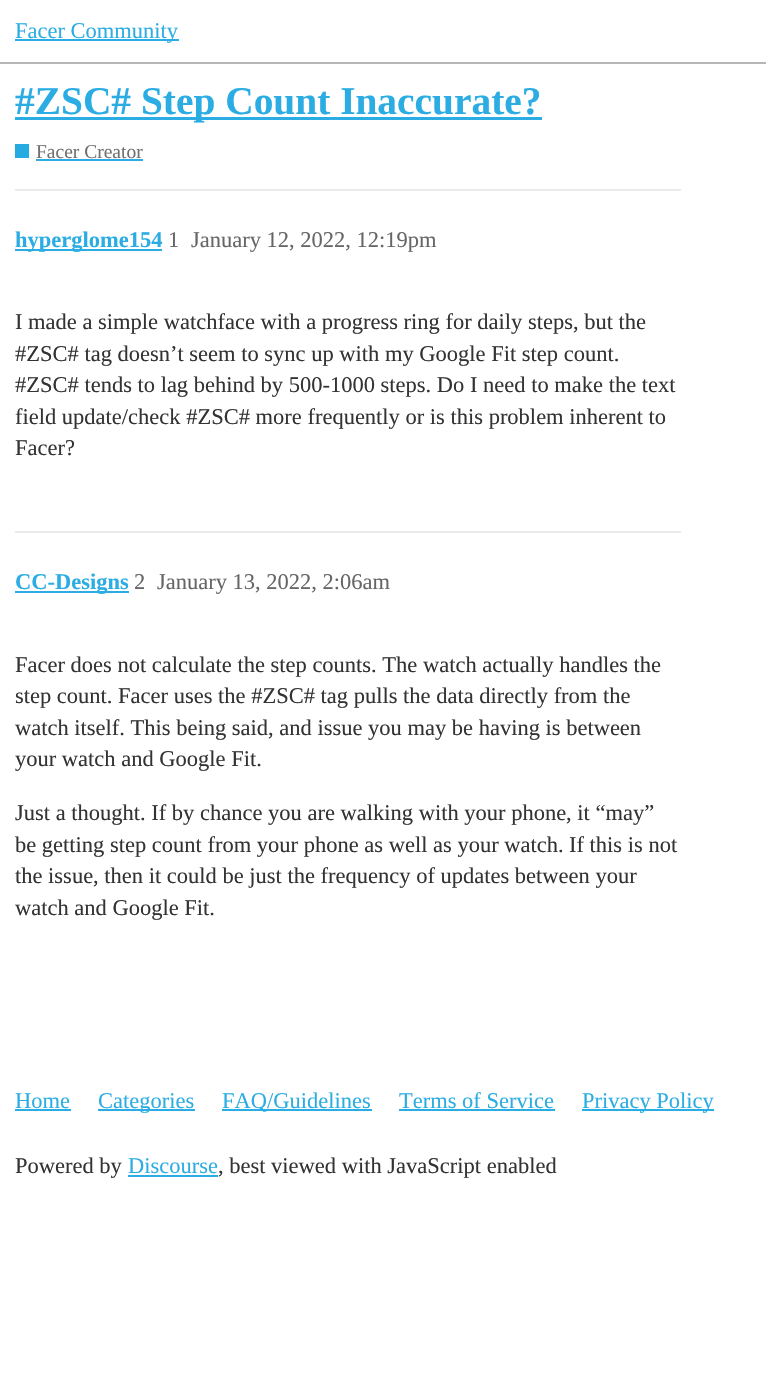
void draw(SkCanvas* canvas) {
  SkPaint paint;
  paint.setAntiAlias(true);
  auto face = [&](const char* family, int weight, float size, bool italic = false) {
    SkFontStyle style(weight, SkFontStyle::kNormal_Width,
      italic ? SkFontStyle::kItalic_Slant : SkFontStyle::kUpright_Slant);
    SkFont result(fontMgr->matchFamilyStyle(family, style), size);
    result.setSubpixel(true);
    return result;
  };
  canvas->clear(0xffffffff);
  {
    const struct { float x, y, w, h; SkColor color; } items[] = {
      {0, 62, 766, 2, 0xffb6b6b6},
      {15, 39, 164, 2, 0xff2bade3},
      {15, 117, 527, 3, 0xff2bade3},
      {15, 144, 14, 14, 0xff25aae2},
      {36, 159, 107, 2, 0xff2bade3},
      {15, 189, 666, 2, 0xffebebeb},
      {15, 249, 147, 2, 0xff2bade3},
      {15, 531, 666, 2, 0xffebebeb},
      {15, 591, 114, 2, 0xff2bade3},
      {15, 1109, 56, 2, 0xff2bade3},
      {98, 1109, 97, 2, 0xff2bade3},
      {222, 1109, 150, 2, 0xff2bade3},
      {399, 1109, 156, 2, 0xff2bade3},
      {582, 1109, 132, 2, 0xff2bade3},
      {128, 1175, 90, 2, 0xff2bade3},
    };
    for (auto [x, y, w, h, color] : items) {
      paint.setColor(color);
      canvas->drawRect(SkRect::MakeXYWH(x, y, w, h), paint);
    }
  }
  auto f0 = face("Liberation Serif", 400, 22.5f);
  canvas->drawString("Facer Community", 15, 38, f0, paint);
  auto f1 = face("Liberation Serif", 700, 39.4f);
  canvas->drawString("#ZSC# Step Count Inaccurate?", 15, 114, f1, paint);
  auto f2 = face("Liberation Serif", 400, 19.5f);
  paint.setColor(0xff707070);
  canvas->drawString("Facer Creator", 36, 158, f2, paint);
  auto f3 = face("Liberation Serif", 700, 22.5f);
  paint.setColor(0xff2bade3);
  canvas->drawString("hyperglome154", 15, 247, f3, paint);
  paint.setColor(0xff666666);
  canvas->drawString("1", 168, 247, f0, paint);
  canvas->drawString("January 12, 2022, 12:19pm", 191, 247, f0, paint);
  paint.setColor(0xff333333);
  {
    const struct { const char* s; float x, y; } items[] = {
      {"I made a simple watchface with a progress ring for daily steps, but the", 15, 329},
      {"#ZSC# tag doesn’t seem to sync up with my Google Fit step count.", 15, 361},
      {"#ZSC# tends to lag behind by 500-1000 steps. Do I need to make the text", 15, 392},
      {"field update/check #ZSC# more frequently or is this problem inherent to", 15, 424},
      {"Facer?", 15, 455},
    };
    for (auto [s, x, y] : items) {
      canvas->drawString(s, x, y, f0, paint);
    }
  }
  paint.setColor(0xff2bade3);
  canvas->drawString("CC-Designs", 15, 589, f3, paint);
  paint.setColor(0xff666666);
  canvas->drawString("2", 134, 589, f0, paint);
  canvas->drawString("January 13, 2022, 2:06am", 157, 589, f0, paint);
  paint.setColor(0xff333333);
  {
    const struct { const char* s; float x, y; } items[] = {
      {"Facer does not calculate the step counts. The watch actually handles the", 15, 672},
      {"step count. Facer uses the #ZSC# tag pulls the data directly from the", 15, 703},
      {"watch itself. This being said, and issue you may be having is between", 15, 735},
      {"your watch and Google Fit.", 15, 766},
      {"Just a thought. If by chance you are walking with your phone, it “may”", 15, 820},
      {"be getting step count from your phone as well as your watch.", 15, 852},
      {"If this is not", 569, 852},
      {"the issue, then it could be just the frequency of updates between your", 15, 883},
      {"watch and Google Fit.", 15, 915},
    };
    for (auto [s, x, y] : items) {
      canvas->drawString(s, x, y, f0, paint);
    }
  }
  paint.setColor(0xff2bade3);
  {
    const struct { const char* s; float x, y; } items[] = {
      {"Home", 15, 1108},
      {"Categories", 98, 1108},
      {"FAQ/Guidelines", 222, 1108},
      {"Terms of Service", 399, 1108},
      {"Privacy Policy", 582, 1108},
    };
    for (auto [s, x, y] : items) {
      canvas->drawString(s, x, y, f0, paint);
    }
  }
  paint.setColor(0xff333333);
  canvas->drawString("Powered by", 15, 1173, f0, paint);
  paint.setColor(0xff2bade3);
  canvas->drawString("Discourse", 128, 1173, f0, paint);
  paint.setColor(0xff333333);
  canvas->drawString(", best viewed with JavaScript enabled", 218, 1173, f0, paint);
}
